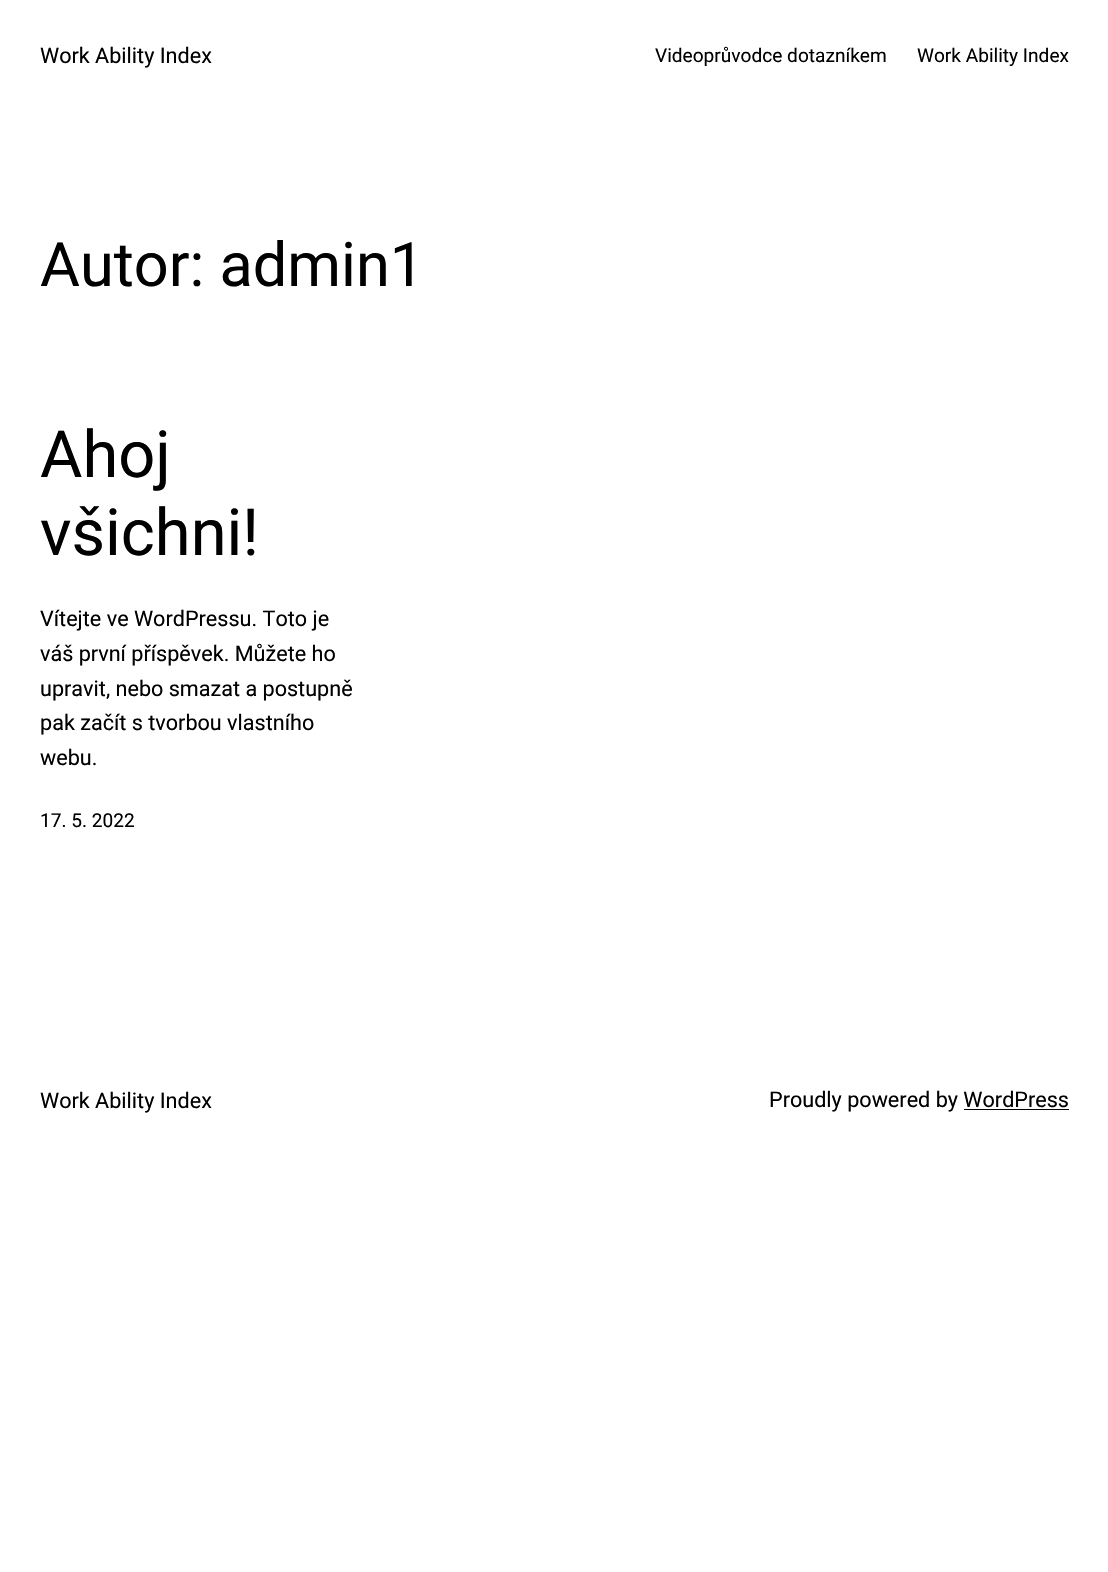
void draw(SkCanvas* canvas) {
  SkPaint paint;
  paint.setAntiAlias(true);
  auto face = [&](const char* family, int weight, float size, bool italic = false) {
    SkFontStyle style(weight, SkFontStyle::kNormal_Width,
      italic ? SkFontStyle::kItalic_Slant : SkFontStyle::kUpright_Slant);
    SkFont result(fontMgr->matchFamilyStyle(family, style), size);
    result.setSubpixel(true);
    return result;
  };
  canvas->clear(0xffffffff);
  paint.setColor(0xff000000);
  canvas->drawRect(SkRect::MakeXYWH(964, 1109, 105, 1), paint);
  auto f0 = face("Roboto", 400, 21.6f);
  canvas->drawString("Work Ability Index", 40, 63, f0, paint);
  auto f1 = face("Roboto", 400, 19.1f);
  canvas->drawString("Videoprůvodce dotazníkem", 655, 62, f1, paint);
  canvas->drawString("Work Ability Index", 917, 62, f1, paint);
  auto f2 = face("Roboto", 400, 61.25f);
  canvas->drawString("Autor: admin1", 40, 286, f2, paint);
  auto f3 = face("Roboto", 400, 65);
  canvas->drawString("Ahoj", 40, 477, f3, paint);
  canvas->drawString("všichni!", 40, 555, f3, paint);
  {
    const struct { const char* s; float x, y; } items[] = {
      {"Vítejte ve WordPressu. Toto je", 40, 626},
      {"váš první příspěvek. Můžete ho", 40, 661},
      {"upravit, nebo smazat a postupně", 40, 696},
      {"pak začít s tvorbou vlastního", 40, 730},
      {"webu.", 40, 765},
    };
    for (auto [s, x, y] : items) {
      canvas->drawString(s, x, y, f0, paint);
    }
  }
  canvas->drawString("17. 5. 2022", 40, 827, f1, paint);
  canvas->drawString("Work Ability Index", 40, 1108, f0, paint);
  canvas->drawString("Proudly powered by WordPress", 769, 1107, f0, paint);
}
